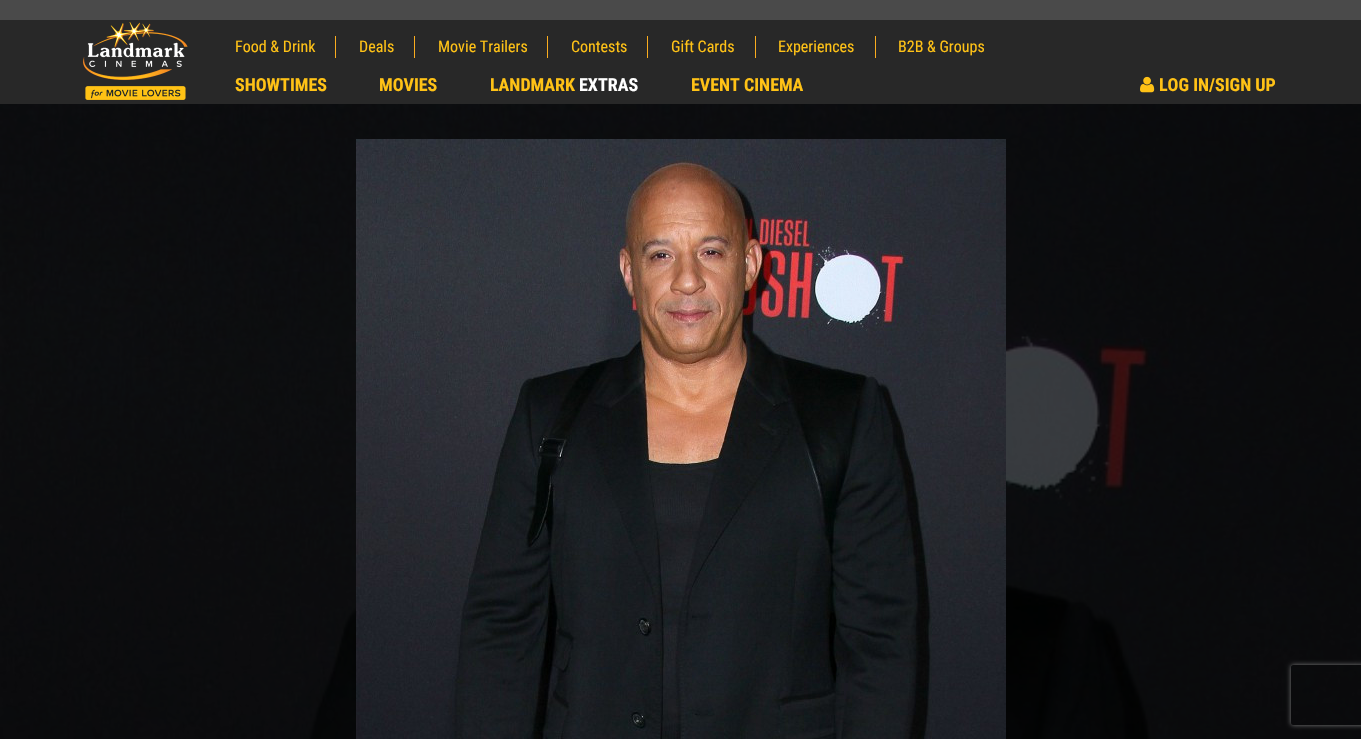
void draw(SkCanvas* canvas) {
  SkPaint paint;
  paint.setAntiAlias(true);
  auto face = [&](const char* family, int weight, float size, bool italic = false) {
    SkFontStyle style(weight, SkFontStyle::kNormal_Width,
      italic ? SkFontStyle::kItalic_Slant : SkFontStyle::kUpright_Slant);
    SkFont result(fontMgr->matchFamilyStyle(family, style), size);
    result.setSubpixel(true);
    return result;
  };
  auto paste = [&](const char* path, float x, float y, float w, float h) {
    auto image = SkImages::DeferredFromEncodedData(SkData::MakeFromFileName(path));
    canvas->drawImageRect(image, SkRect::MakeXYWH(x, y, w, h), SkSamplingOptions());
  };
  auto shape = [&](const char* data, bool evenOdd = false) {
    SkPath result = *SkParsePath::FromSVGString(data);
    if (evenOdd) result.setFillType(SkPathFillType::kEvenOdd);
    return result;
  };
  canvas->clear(0xff4a4a4a);
  paint.setColor(0xff282828);
  canvas->drawRect(SkRect::MakeXYWH(0, 20, 1361, 84), paint);
  paste("img/1.png", 83, 22, 105, 78);
  {
    const struct { float x, y, w, h; SkColor color; } items[] = {
      {335, 36, 1, 22, 0xfffaac1f},
      {414, 36, 1, 22, 0xfffaac1f},
      {547, 36, 1, 22, 0xfffaac1f},
      {647, 36, 1, 22, 0xfffaac1f},
      {755, 36, 1, 22, 0xfffaac1f},
      {875, 36, 1, 22, 0xfffaac1f},
    };
    for (auto [x, y, w, h, color] : items) {
      paint.setColor(color);
      canvas->drawRect(SkRect::MakeXYWH(x, y, w, h), paint);
    }
  }
  paste("img/2.png", 1140, 76, 15, 17);
  paste("img/3.png", 0, 104, 1361, 635);
  paste("img/4.png", 356, 139, 650, 600);
  canvas->save();
  canvas->clipPath(shape("M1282 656H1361V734H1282ZM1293 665H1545C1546 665 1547 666 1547 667V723C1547 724 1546 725 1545 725H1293C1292 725 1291 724 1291 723V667C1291 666 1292 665 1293 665Z", true), true);
  paint.setColor(0xff808080);
  paint.setMaskFilter(SkMaskFilter::MakeBlur(kNormal_SkBlurStyle, 2.5f));
  canvas->drawRoundRect(SkRect::MakeXYWH(1291, 665, 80, 60), 2, 2, paint);
  paint.setMaskFilter(nullptr);
  canvas->restore();
  auto f0 = face("Roboto Condensed", 400, 16);
  paint.setColor(0xffffc216);
  {
    const struct { const char* s; float x, y; } items[] = {
      {"Food & Drink", 235, 52},
      {"Deals", 359, 52},
      {"Movie Trailers", 438, 52},
      {"Contests", 571, 52},
      {"Gift Cards", 671, 52},
      {"Experiences", 778, 52},
      {"B2B & Groups", 898, 52},
    };
    for (auto [s, x, y] : items) {
      canvas->drawString(s, x, y, f0, paint);
    }
  }
  auto f1 = face("Roboto Condensed", 700, 18);
  {
    const struct { const char* s; float x, y; } items[] = {
      {"SHOWTIMES", 235, 91},
      {"MOVIES", 379, 91},
      {"LANDMARK", 490, 91},
    };
    for (auto [s, x, y] : items) {
      canvas->drawString(s, x, y, f1, paint);
    }
  }
  paint.setColor(0xffffffff);
  canvas->drawString("EXTRAS", 579, 91, f1, paint);
  paint.setColor(0xffffc216);
  canvas->drawString("EVENT CINEMA", 691, 91, f1, paint);
  canvas->drawString("LOG IN/SIGN UP", 1159, 91, f1, paint);
}
